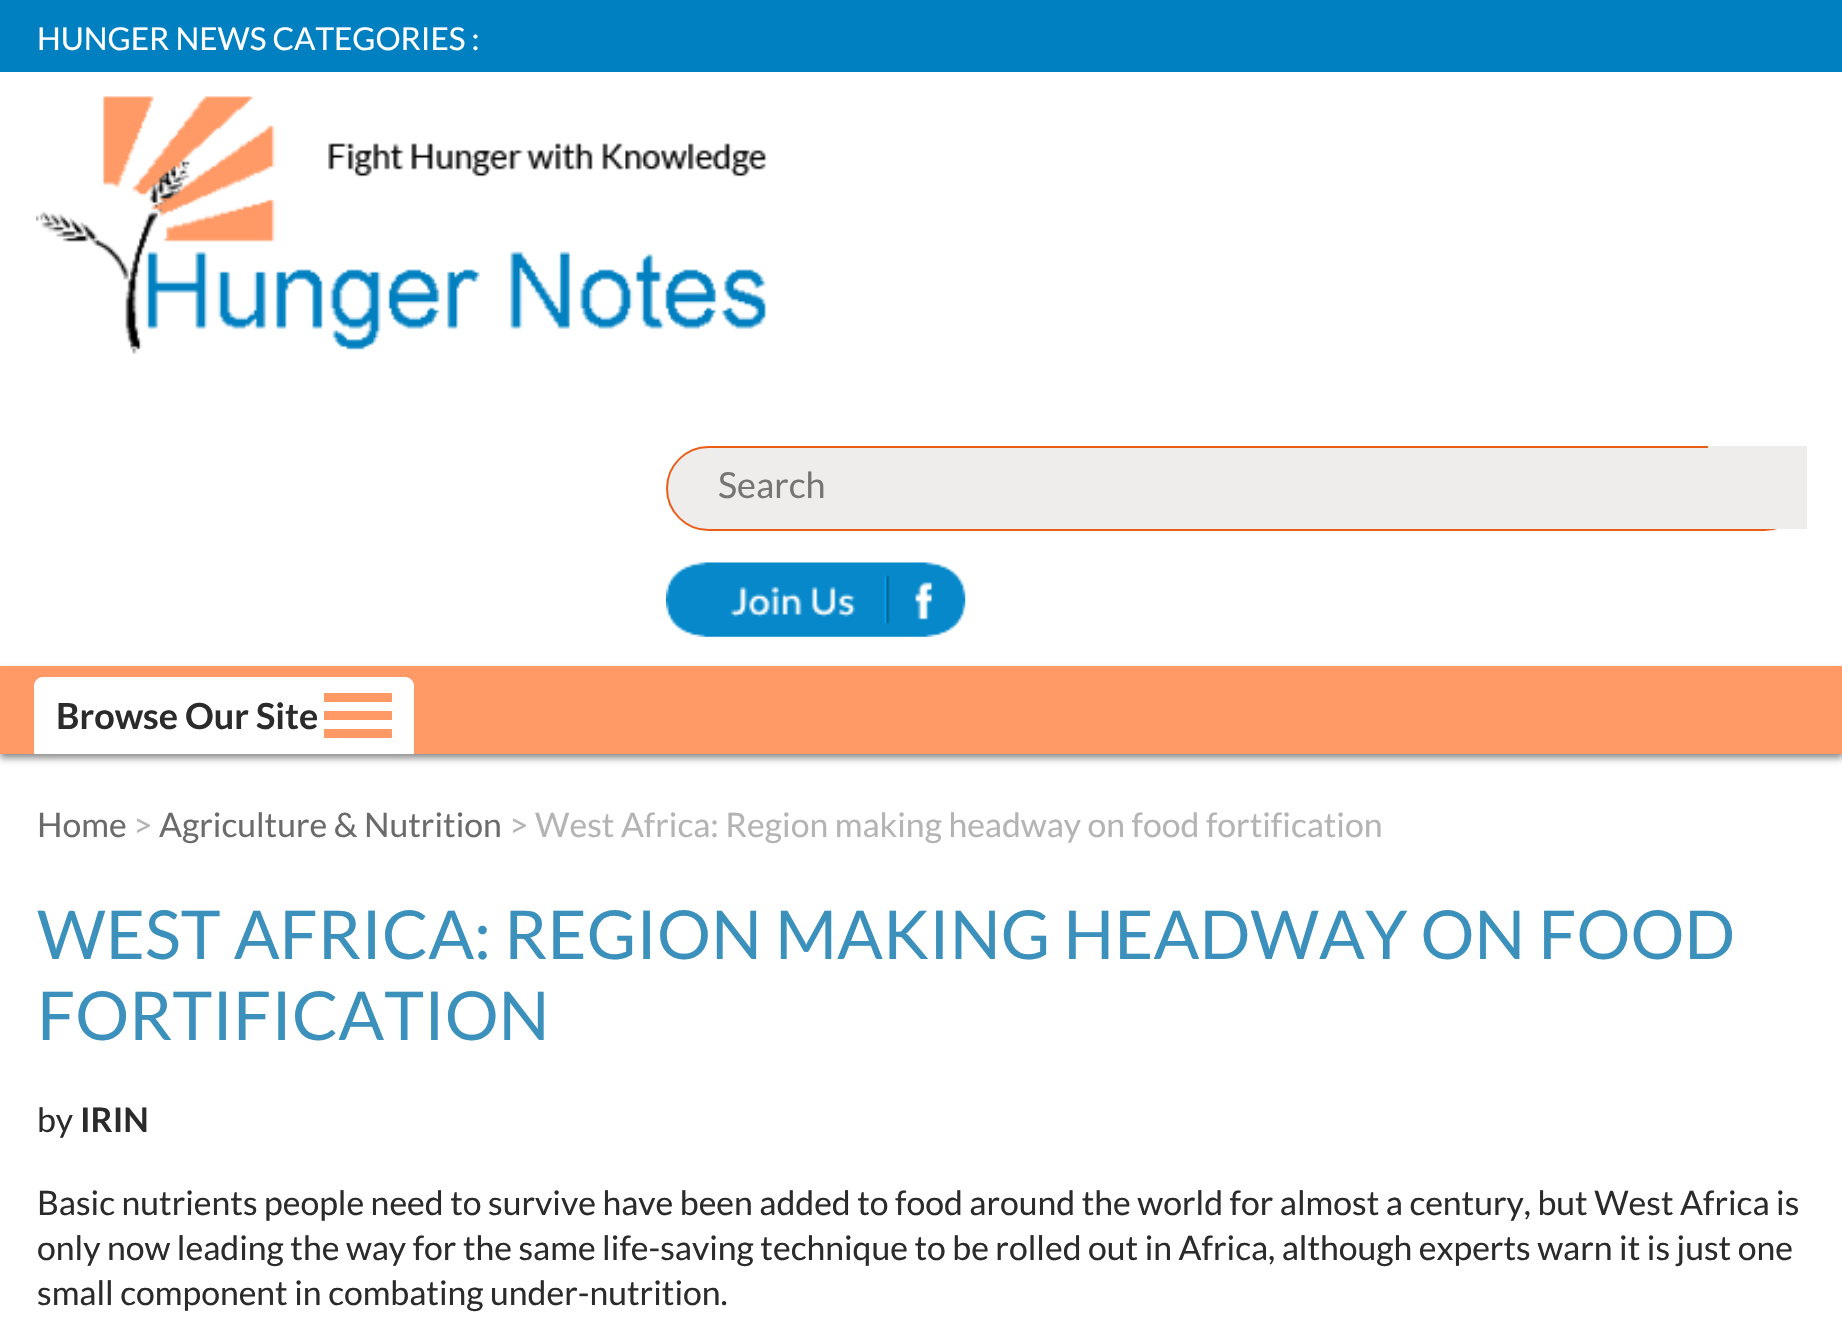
void draw(SkCanvas* canvas) {
  SkPaint paint;
  paint.setAntiAlias(true);
  auto face = [&](const char* family, int weight, float size, bool italic = false) {
    SkFontStyle style(weight, SkFontStyle::kNormal_Width,
      italic ? SkFontStyle::kItalic_Slant : SkFontStyle::kUpright_Slant);
    SkFont result(fontMgr->matchFamilyStyle(family, style), size);
    result.setSubpixel(true);
    return result;
  };
  auto paste = [&](const char* path, float x, float y, float w, float h) {
    auto image = SkImages::DeferredFromEncodedData(SkData::MakeFromFileName(path));
    canvas->drawImageRect(image, SkRect::MakeXYWH(x, y, w, h), SkSamplingOptions());
  };
  auto shape = [&](const char* data, bool evenOdd = false) {
    SkPath result = *SkParsePath::FromSVGString(data);
    if (evenOdd) result.setFillType(SkPathFillType::kEvenOdd);
    return result;
  };
  canvas->clear(0xffffffff);
  paint.setColor(0xff0080c1);
  canvas->drawRect(SkRect::MakeXYWH(0, 0, 1842, 72), paint);
  paste("img/1.png", 36, 96, 732, 258);
  paint.setColor(0xffeeedec);
  canvas->drawRoundRect(SkRect::MakeXYWH(667, 447, 1139, 83), 41.5f, 41.5f, paint);
  paint.setStroke(true);
  paint.setStrokeWidth(2);
  paint.setColor(0xffea5d17);
  canvas->drawRoundRect(SkRect::MakeXYWH(667, 447, 1139, 83), 41.5f, 41.5f, paint);
  paint.setStroke(false);
  paint.setColor(0xffeeedec);
  canvas->drawRect(SkRect::MakeXYWH(1708, 446, 99, 83), paint);
  paste("img/2.png", 666, 562, 300, 75);
  paint.setColor(0xff898989);
  paint.setMaskFilter(SkMaskFilter::MakeBlur(kNormal_SkBlurStyle, 3.5f));
  canvas->drawRect(SkRect::MakeXYWH(0, 671, 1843, 87), paint);
  paint.setMaskFilter(nullptr);
  paint.setColor(0xffff9966);
  canvas->drawRect(SkRect::MakeXYWH(0, 666, 1842, 88), paint);
  paint.setColor(0xffffffff);
  canvas->drawPath(shape("M43 677H405C410 677 414 681 414 686V754H34V686C34 681 38 677 43 677Z"), paint);
  {
    const struct { float x, y, w, h; SkColor color; } items[] = {
      {324, 693, 68, 9, 0xffff9966},
      {324, 711, 68, 9, 0xffff9966},
      {324, 729, 68, 9, 0xffff9966},
    };
    for (auto [x, y, w, h, color] : items) {
      paint.setColor(color);
      canvas->drawRect(SkRect::MakeXYWH(x, y, w, h), paint);
    }
  }
  auto f0 = face("Lato", 400, 31.5f);
  paint.setColor(0xffffffff);
  canvas->drawString("HUNGER NEWS CATEGORIES :", 37, 50, f0, paint);
  auto f1 = face("Lato", 400, 36);
  paint.setColor(0xff757575);
  canvas->drawString("Search", 718, 498, f1, paint);
  auto f2 = face("Lato", 700, 36);
  paint.setColor(0xff2c2b2b);
  canvas->drawString("Browse Our Site", 56, 729, f2, paint);
  auto f3 = face("Lato", 400, 33.75f);
  paint.setColor(0xff6b6b6b);
  canvas->drawString("Home", 37, 837, f3, paint);
  paint.setColor(0xffb4b4b4);
  canvas->drawString(">", 133, 837, f3, paint);
  paint.setColor(0xff6b6b6b);
  canvas->drawString("Agriculture & Nutrition", 159, 837, f3, paint);
  paint.setColor(0xffb4b4b4);
  canvas->drawString("> West Africa: Region making headway on food fortification", 509, 837, f3, paint);
  auto f4 = face("Lato", 400, 67.5f);
  paint.setColor(0xff3c91bc);
  canvas->drawString("WEST AFRICA: REGION MAKING HEADWAY ON FOOD", 37, 959, f4, paint);
  canvas->drawString("FORTIFICATION", 37, 1040, f4, paint);
  paint.setColor(0xff2c2b2b);
  canvas->drawString("by", 37, 1132, f3, paint);
  auto f5 = face("Lato", 700, 33.75f);
  canvas->drawString("IRIN", 80, 1132, f5, paint);
  {
    const struct { const char* s; float x, y; } items[] = {
      {"Basic nutrients people need to survive have been added to food around the world for almost a century, but West Africa is", 37, 1215},
      {"only now leading the way for the same life-saving technique to be rolled out in Africa, although experts warn it is just one", 37, 1260},
      {"small component in combating under-nutrition.", 37, 1305},
    };
    for (auto [s, x, y] : items) {
      canvas->drawString(s, x, y, f3, paint);
    }
  }
}
